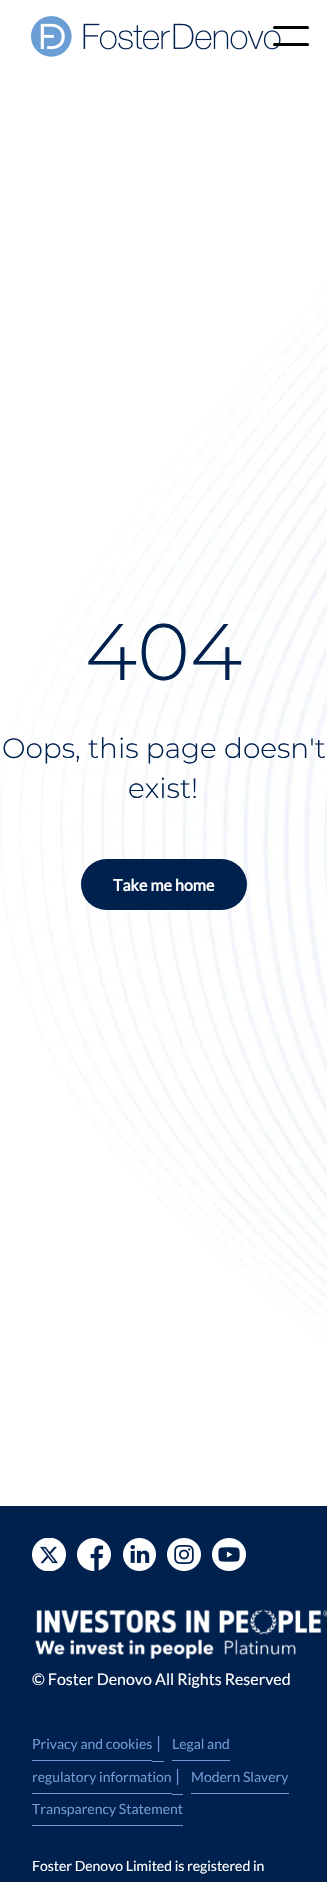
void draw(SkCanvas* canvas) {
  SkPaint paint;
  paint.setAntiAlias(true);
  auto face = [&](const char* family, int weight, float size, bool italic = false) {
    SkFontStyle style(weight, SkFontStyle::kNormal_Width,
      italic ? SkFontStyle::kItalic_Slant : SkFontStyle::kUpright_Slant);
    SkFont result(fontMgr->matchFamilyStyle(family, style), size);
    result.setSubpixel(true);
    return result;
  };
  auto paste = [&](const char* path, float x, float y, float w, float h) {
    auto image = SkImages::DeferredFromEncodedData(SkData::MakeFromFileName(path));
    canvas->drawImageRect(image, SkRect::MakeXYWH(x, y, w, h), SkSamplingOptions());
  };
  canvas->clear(0xffffffff);
  paste("img/2.png", 0, 0, 327, 1506);
  paste("img/1.png", 31, 16, 250, 41);
  paint.setColor(0xff000000);
  canvas->drawRoundRect(SkRect::MakeXYWH(273, 26, 36, 3), 1.5f, 1.5f, paint);
  canvas->drawRoundRect(SkRect::MakeXYWH(273, 43, 36, 3), 1.5f, 1.5f, paint);
  paint.setColor(0xff00204e);
  canvas->drawRoundRect(SkRect::MakeXYWH(81, 859, 166, 51), 25.5f, 25.5f, paint);
  canvas->drawRect(SkRect::MakeXYWH(0, 1506, 327, 376), paint);
  paste("img/3.png", 32, 1538, 34, 33);
  paste("img/4.png", 77, 1538, 34, 33);
  paste("img/5.png", 123, 1538, 33, 33);
  paste("img/6.png", 167, 1538, 34, 33);
  paste("img/7.png", 212, 1538, 34, 33);
  paste("img/8.png", 35, 1609, 292, 50);
  {
    const struct { float x, y, w, h; SkColor color; } items[] = {
      {32, 1760, 120, 1, 0xff6f9ad3},
      {152, 1761, 12, 1, 0xff6f9ad3},
      {172, 1760, 58, 1, 0xff6f9ad3},
      {32, 1793, 140, 1, 0xff6f9ad3},
      {172, 1794, 11, 1, 0xff6f9ad3},
      {191, 1793, 98, 1, 0xff6f9ad3},
      {32, 1825, 151, 1, 0xff6f9ad3},
    };
    for (auto [x, y, w, h, color] : items) {
      paint.setColor(color);
      canvas->drawRect(SkRect::MakeXYWH(x, y, w, h), paint);
    }
  }
  auto f0 = face("Montserrat", 300, 80);
  paint.setColor(0xff00204e);
  canvas->drawString("404", 85, 680, f0, paint);
  auto f1 = face("Montserrat", 300, 28);
  canvas->drawString("Oops, this page doesn't", 2, 758, f1, paint);
  canvas->drawString("exist!", 128, 798, f1, paint);
  auto f2 = face("Lato", 700, 16);
  paint.setColor(0xffffffff);
  canvas->drawString("Take me home", 113, 891, f2, paint);
  auto f3 = face("Lato", 400, 16);
  canvas->drawString("© Foster Denovo All Rights Reserved", 32, 1685, f3, paint);
  auto f4 = face("Lato", 400, 14);
  paint.setColor(0xff6f9ad3);
  canvas->drawString("Privacy and cookies", 32, 1749, f4, paint);
  auto f5 = face("Lato", 400, 17);
  canvas->drawString("|", 156, 1749, f5, paint);
  canvas->drawString("Legal and", 172, 1749, f4, paint);
  canvas->drawString("regulatory information", 32, 1782, f4, paint);
  canvas->drawString("|", 175, 1782, f5, paint);
  canvas->drawString("Modern Slavery", 191, 1782, f4, paint);
  canvas->drawString("Transparency Statement", 32, 1814, f4, paint);
  paint.setColor(0xffffffff);
  canvas->drawString("Foster Denovo Limited is registered in", 32, 1871, f4, paint);
}
